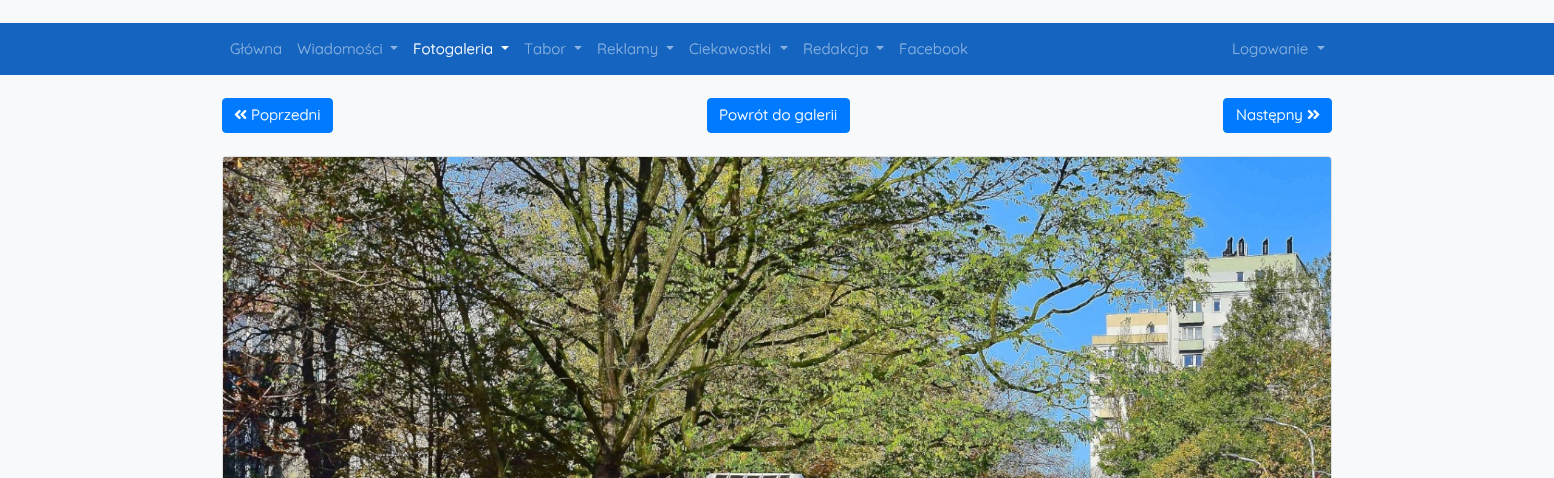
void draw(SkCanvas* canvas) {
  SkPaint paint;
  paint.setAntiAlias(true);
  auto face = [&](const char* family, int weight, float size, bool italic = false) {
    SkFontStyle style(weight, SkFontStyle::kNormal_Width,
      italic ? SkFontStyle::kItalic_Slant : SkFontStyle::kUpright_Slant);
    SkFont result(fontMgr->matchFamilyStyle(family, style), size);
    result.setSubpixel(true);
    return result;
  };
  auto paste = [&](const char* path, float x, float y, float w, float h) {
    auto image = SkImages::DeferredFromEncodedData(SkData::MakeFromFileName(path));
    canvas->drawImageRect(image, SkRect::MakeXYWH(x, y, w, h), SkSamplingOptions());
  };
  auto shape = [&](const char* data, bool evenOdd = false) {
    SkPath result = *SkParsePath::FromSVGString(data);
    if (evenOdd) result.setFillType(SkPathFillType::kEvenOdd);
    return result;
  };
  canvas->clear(0xfff8f9fa);
  paint.setColor(0xff1565c0);
  canvas->drawRect(SkRect::MakeXYWH(0, 23, 1554, 52), paint);
  paint.setColor(0xff8ab2e0);
  canvas->drawPath(shape("M390 46H398L394 50Z"), paint);
  paint.setColor(0xffffffff);
  canvas->drawPath(shape("M501 46H509L505 50Z"), paint);
  paint.setColor(0xff8ab2e0);
  canvas->drawPath(shape("M574 46H582L578 50Z"), paint);
  canvas->drawPath(shape("M666 46H674L670 50Z"), paint);
  canvas->drawPath(shape("M780 46H788L784 50Z"), paint);
  canvas->drawPath(shape("M876 46H884L880 50Z"), paint);
  canvas->drawPath(shape("M1317 46H1325L1321 50Z"), paint);
  paint.setColor(0xff007bff);
  canvas->drawRoundRect(SkRect::MakeXYWH(222.5f, 98.5f, 110, 34), 3.5f, 3.5f, paint);
  paint.setStroke(true);
  paint.setStrokeWidth(1);
  canvas->drawRoundRect(SkRect::MakeXYWH(222.5f, 98.5f, 110, 34), 3.5f, 3.5f, paint);
  paste("img/1.png", 234, 109, 13, 11);
  paint.setStroke(false);
  canvas->drawRoundRect(SkRect::MakeXYWH(707.5f, 98.5f, 142, 34), 3.5f, 3.5f, paint);
  paint.setStroke(true);
  canvas->drawRoundRect(SkRect::MakeXYWH(707.5f, 98.5f, 142, 34), 3.5f, 3.5f, paint);
  paint.setStroke(false);
  canvas->drawRoundRect(SkRect::MakeXYWH(1223.5f, 98.5f, 108, 34), 3.5f, 3.5f, paint);
  paint.setStroke(true);
  canvas->drawRoundRect(SkRect::MakeXYWH(1223.5f, 98.5f, 108, 34), 3.5f, 3.5f, paint);
  paste("img/2.png", 1307, 109, 13, 11);
  paint.setColor(0xffdfdfdf);
  canvas->drawRoundRect(SkRect::MakeXYWH(222.5f, 156.5f, 1109, 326), 3.5f, 3.5f, paint);
  paste("img/3.png", 223, 157, 1108, 321);
  auto f0 = face("Quicksand", 300, 15);
  paint.setStroke(false);
  paint.setColor(0xff8ab2e0);
  canvas->drawString("Główna", 230, 54, f0, paint);
  canvas->drawString("Wiadomości", 297, 54, f0, paint);
  paint.setColor(0xffffffff);
  canvas->drawString("Fotogaleria", 413, 54, f0, paint);
  paint.setColor(0xff8ab2e0);
  {
    const struct { const char* s; float x, y; } items[] = {
      {"Tabor", 524, 54},
      {"Reklamy", 597, 54},
      {"Ciekawostki", 689, 54},
      {"Redakcja", 803, 54},
      {"Facebook", 899, 54},
      {"Logowanie", 1232, 54},
    };
    for (auto [s, x, y] : items) {
      canvas->drawString(s, x, y, f0, paint);
    }
  }
  paint.setColor(0xffffffff);
  {
    const struct { const char* s; float x, y; } items[] = {
      {"Poprzedni", 251, 120},
      {"Powrót do galerii", 719, 120},
      {"Następny", 1236, 120},
    };
    for (auto [s, x, y] : items) {
      canvas->drawString(s, x, y, f0, paint);
    }
  }
}
